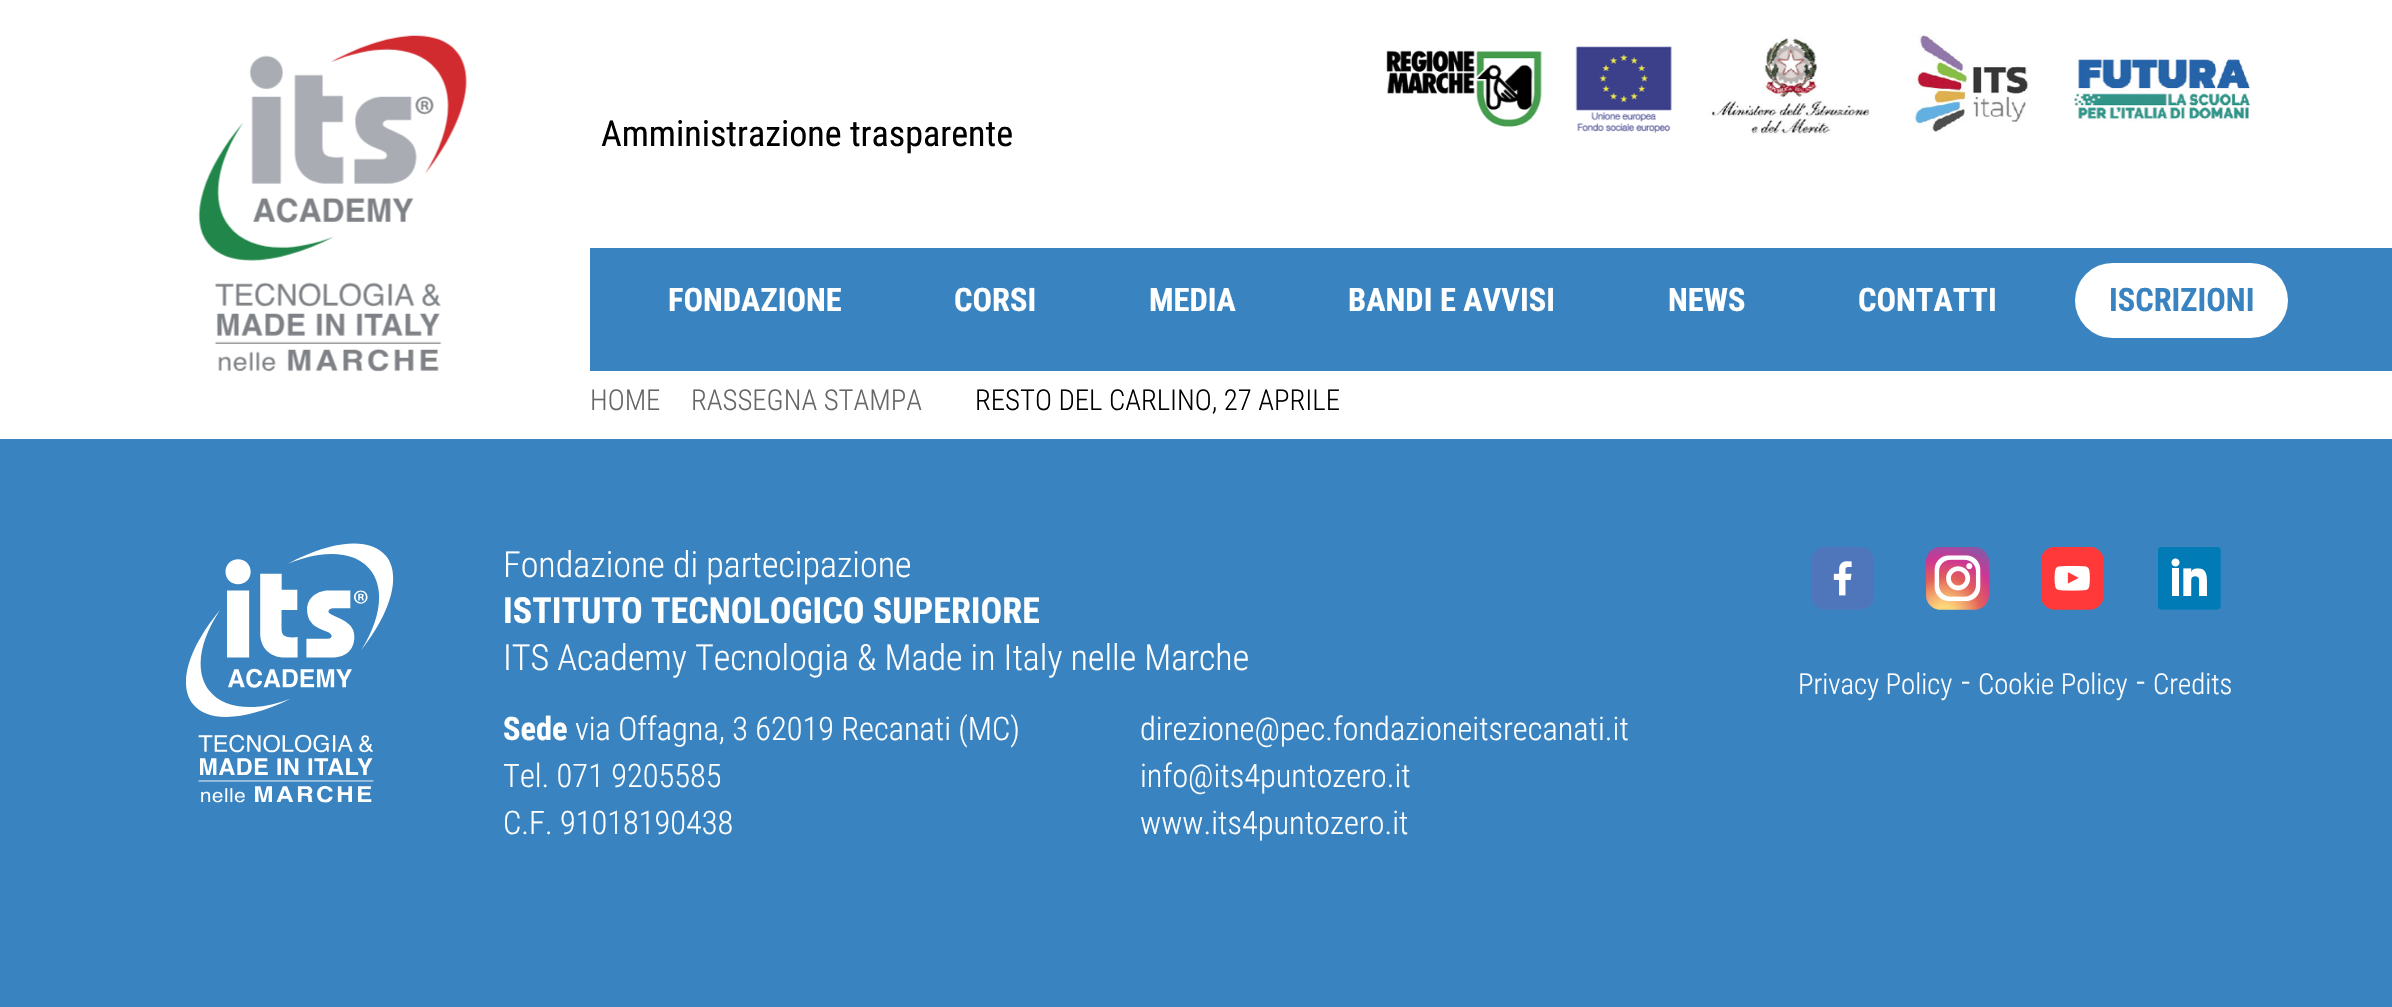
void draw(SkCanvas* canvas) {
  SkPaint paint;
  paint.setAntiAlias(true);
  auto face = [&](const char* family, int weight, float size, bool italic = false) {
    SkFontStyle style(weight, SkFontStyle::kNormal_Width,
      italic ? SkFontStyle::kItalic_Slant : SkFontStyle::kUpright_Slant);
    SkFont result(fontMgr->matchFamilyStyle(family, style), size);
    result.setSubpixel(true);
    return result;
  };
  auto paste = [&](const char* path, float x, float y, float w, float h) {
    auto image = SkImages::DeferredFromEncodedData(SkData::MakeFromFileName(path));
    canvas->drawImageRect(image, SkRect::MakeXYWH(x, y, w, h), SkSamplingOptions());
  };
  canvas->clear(0xff3984c0);
  paint.setColor(0xffffffff);
  canvas->drawRect(SkRect::MakeXYWH(0, 0, 2392, 439), paint);
  paste("img/1.png", 198, 35, 269, 337);
  paste("img/2.png", 1386, 34, 865, 101);
  paint.setColor(0xff3984c0);
  canvas->drawRect(SkRect::MakeXYWH(590, 248, 1802, 123), paint);
  paint.setColor(0xffffffff);
  canvas->drawRoundRect(SkRect::MakeXYWH(2075, 263, 213, 75), 37.5f, 37.5f, paint);
  paste("img/3.png", 186, 543, 208, 260);
  paste("img/4.png", 1811, 547, 63, 63);
  paste("img/5.png", 1926, 547, 63, 63);
  paste("img/6.png", 2041, 547, 63, 63);
  paste("img/7.png", 2158, 547, 63, 63);
  auto f0 = face("Roboto Condensed", 400, 36);
  paint.setColor(0xff000000);
  canvas->drawString("Amministrazione trasparente", 601, 146, f0, paint);
  auto f1 = face("Roboto Condensed", 700, 32.4f);
  paint.setColor(0xffffffff);
  {
    const struct { const char* s; float x, y; } items[] = {
      {"FONDAZIONE", 668, 311},
      {"CORSI", 954, 311},
      {"MEDIA", 1149, 311},
      {"BANDI E AVVISI", 1348, 311},
      {"NEWS", 1668, 311},
      {"CONTATTI", 1858, 311},
    };
    for (auto [s, x, y] : items) {
      canvas->drawString(s, x, y, f1, paint);
    }
  }
  paint.setColor(0xff3984c0);
  canvas->drawString("ISCRIZIONI", 2109, 311, f1, paint);
  auto f2 = face("Roboto Condensed", 300, 28.75f);
  paint.setColor(0xff666666);
  canvas->drawString("HOME", 590, 410, f2, paint);
  canvas->drawString("RASSEGNA STAMPA", 691, 410, f2, paint);
  paint.setColor(0xff000000);
  canvas->drawString("RESTO DEL CARLINO, 27 APRILE", 975, 410, f2, paint);
  auto f3 = face("Roboto Condensed", 300, 36);
  paint.setColor(0xffffffff);
  canvas->drawString("Fondazione di partecipazione", 503, 577, f3, paint);
  auto f4 = face("Roboto Condensed", 700, 36);
  canvas->drawString("ISTITUTO TECNOLOGICO SUPERIORE", 503, 623, f4, paint);
  canvas->drawString("ITS Academy Tecnologia & Made in Italy nelle Marche", 503, 670, f3, paint);
  canvas->drawString("Sede", 503, 740, f1, paint);
  auto f5 = face("Roboto Condensed", 300, 32.4f);
  {
    const struct { const char* s; float x, y; } items[] = {
      {"via Offagna, 3 62019 Recanati (MC)", 575, 740},
      {"Tel. 071 9205585", 503, 787},
      {"C.F. 91018190438", 503, 834},
      {"direzione@pec.fondazioneitsrecanati.it", 1140, 740},
      {"info@its4puntozero.it", 1140, 787},
      {"www.its4puntozero.it", 1140, 834},
    };
    for (auto [s, x, y] : items) {
      canvas->drawString(s, x, y, f5, paint);
    }
  }
  canvas->drawString("Privacy Policy", 1798, 694, f2, paint);
  canvas->drawString("-", 1961, 694, f3, paint);
  canvas->drawString("Cookie Policy", 1978, 694, f2, paint);
  canvas->drawString("-", 2136, 694, f3, paint);
  canvas->drawString("Credits", 2153, 694, f2, paint);
}
